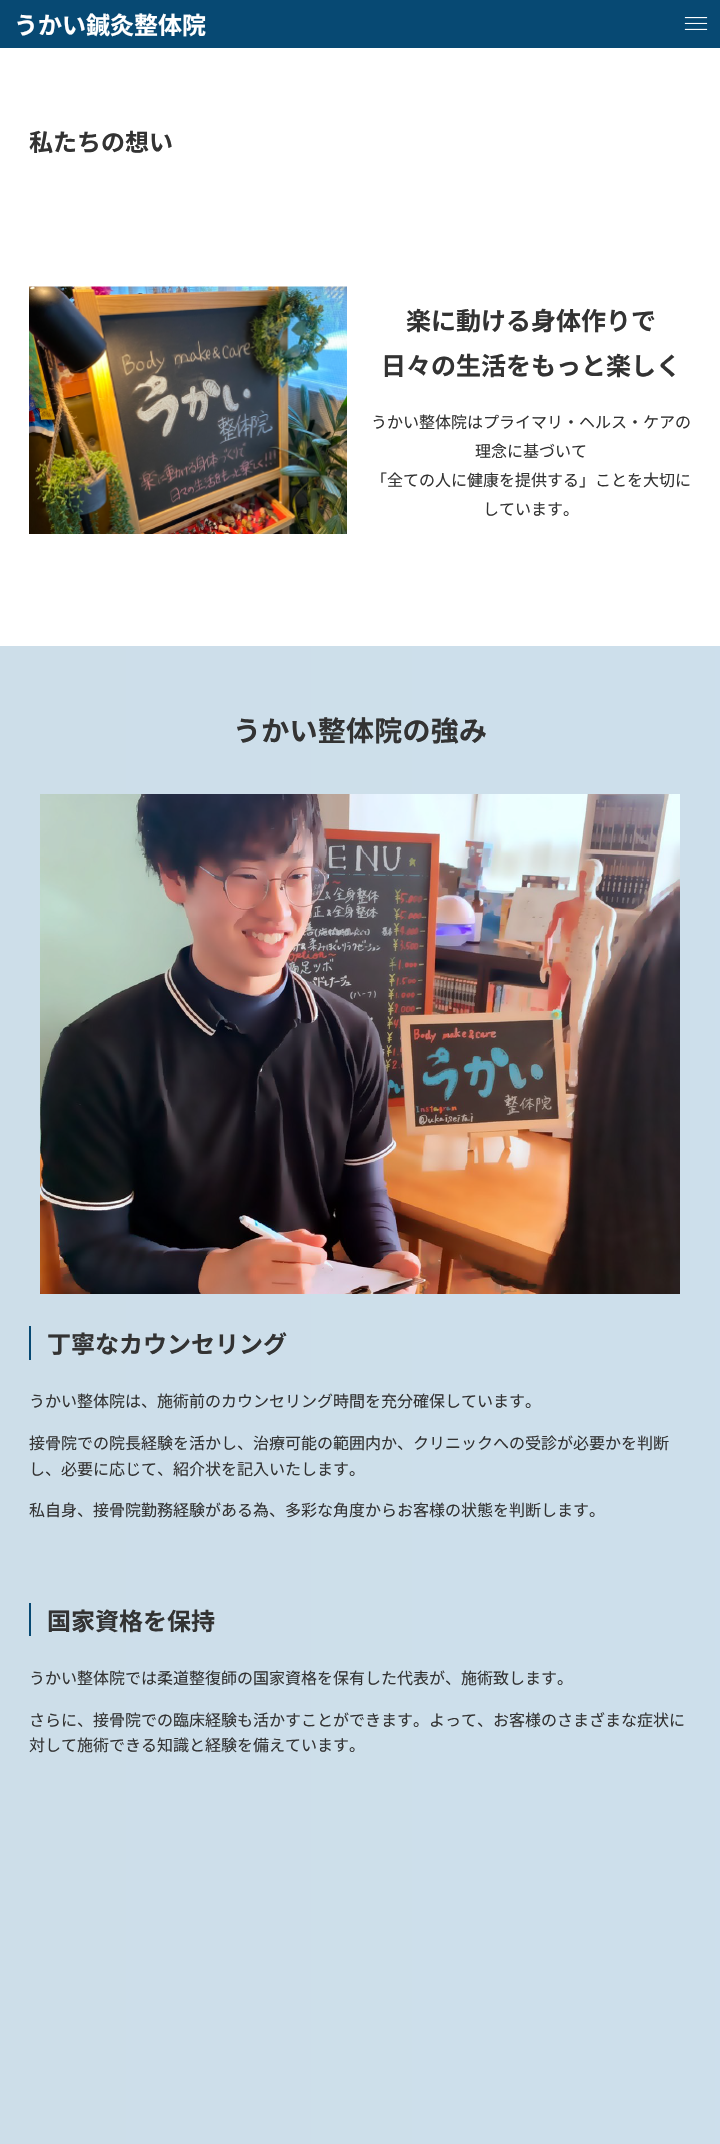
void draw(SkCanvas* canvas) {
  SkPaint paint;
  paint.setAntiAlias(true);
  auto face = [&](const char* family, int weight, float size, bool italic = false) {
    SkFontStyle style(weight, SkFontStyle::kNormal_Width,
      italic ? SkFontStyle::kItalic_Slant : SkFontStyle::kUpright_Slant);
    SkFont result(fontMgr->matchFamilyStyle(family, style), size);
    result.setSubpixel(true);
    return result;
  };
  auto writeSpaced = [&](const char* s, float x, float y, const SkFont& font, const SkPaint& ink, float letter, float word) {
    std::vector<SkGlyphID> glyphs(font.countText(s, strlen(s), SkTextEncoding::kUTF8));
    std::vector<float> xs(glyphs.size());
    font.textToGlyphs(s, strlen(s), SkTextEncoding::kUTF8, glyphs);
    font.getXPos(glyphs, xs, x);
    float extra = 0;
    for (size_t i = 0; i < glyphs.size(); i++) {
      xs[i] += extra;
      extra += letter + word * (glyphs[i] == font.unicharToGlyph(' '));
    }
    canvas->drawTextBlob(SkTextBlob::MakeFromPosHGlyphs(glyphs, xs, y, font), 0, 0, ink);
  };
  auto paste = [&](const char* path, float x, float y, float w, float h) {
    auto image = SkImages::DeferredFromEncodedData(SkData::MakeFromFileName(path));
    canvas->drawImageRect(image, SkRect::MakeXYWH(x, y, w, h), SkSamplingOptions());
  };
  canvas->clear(0xffffffff);
  paint.setColor(0xff074973);
  canvas->drawRect(SkRect::MakeXYWH(0, 0, 720, 48), paint);
  paste("img/1.png", 684, 17, 24, 13);
  paste("img/2.png", 29, 286, 318, 248);
  paste("img/3.png", 0, 646, 720, 1498);
  paste("img/4.png", 40, 794, 640, 500);
  canvas->drawRect(SkRect::MakeXYWH(29, 1326, 2, 34), paint);
  canvas->drawRect(SkRect::MakeXYWH(29, 1603, 2, 33), paint);
  auto f0 = face("Noto Sans JP", 700, 24);
  paint.setColor(0xffffffff);
  canvas->drawString("うかい鍼灸整体院", 14, 34, f0, paint);
  paint.setColor(0xff333333);
  canvas->drawString("私たちの想い", 29, 151, f0, paint);
  auto f1 = face("Noto Sans JP", 700, 25);
  canvas->drawString("楽に動ける身体作りで", 406, 330, f1, paint);
  canvas->drawString("日々の生活をもっと楽しく", 381, 375, f1, paint);
  auto f2 = face("Noto Sans JP", 400, 16);
  {
    const struct { const char* s; float x, y; } items[] = {
      {"うかい整体院はプライマリ・ヘルス・ケアの", 371, 428},
      {"理念に基づいて", 475, 457},
      {"「全ての人に健康を提供する」ことを大切に", 371, 486},
      {"しています。", 483, 515},
    };
    for (auto [s, x, y] : items) {
      canvas->drawString(s, x, y, f2, paint);
    }
  }
  auto f3 = face("Noto Sans JP", 700, 28);
  writeSpaced("うかい整体院の強み", 233, 741, f3, paint, 0.25f, 0);
  canvas->drawString("丁寧なカウンセリング", 47, 1353, f0, paint);
  {
    const struct { const char* s; float x, y; } items[] = {
      {"うかい整体院は、施術前のカウンセリング時間を充分確保しています。", 29, 1407},
      {"接骨院での院長経験を活かし、治療可能の範囲内か、クリニックへの受診が必要かを判断", 29, 1449},
      {"し、必要に応じて、紹介状を記入いたします。", 29, 1475},
      {"私自身、接骨院勤務経験がある為、多彩な角度からお客様の状態を判断します。", 29, 1516},
    };
    for (auto [s, x, y] : items) {
      canvas->drawString(s, x, y, f2, paint);
    }
  }
  canvas->drawString("国家資格を保持", 47, 1630, f0, paint);
  {
    const struct { const char* s; float x, y; } items[] = {
      {"うかい整体院では柔道整復師の国家資格を保有した代表が、施術致します。", 29, 1684},
      {"さらに、接骨院での臨床経験も活かすことができます。よって、お客様のさまざまな症状に", 29, 1726},
      {"対して施術できる知識と経験を備えています。", 29, 1751},
    };
    for (auto [s, x, y] : items) {
      canvas->drawString(s, x, y, f2, paint);
    }
  }
}
